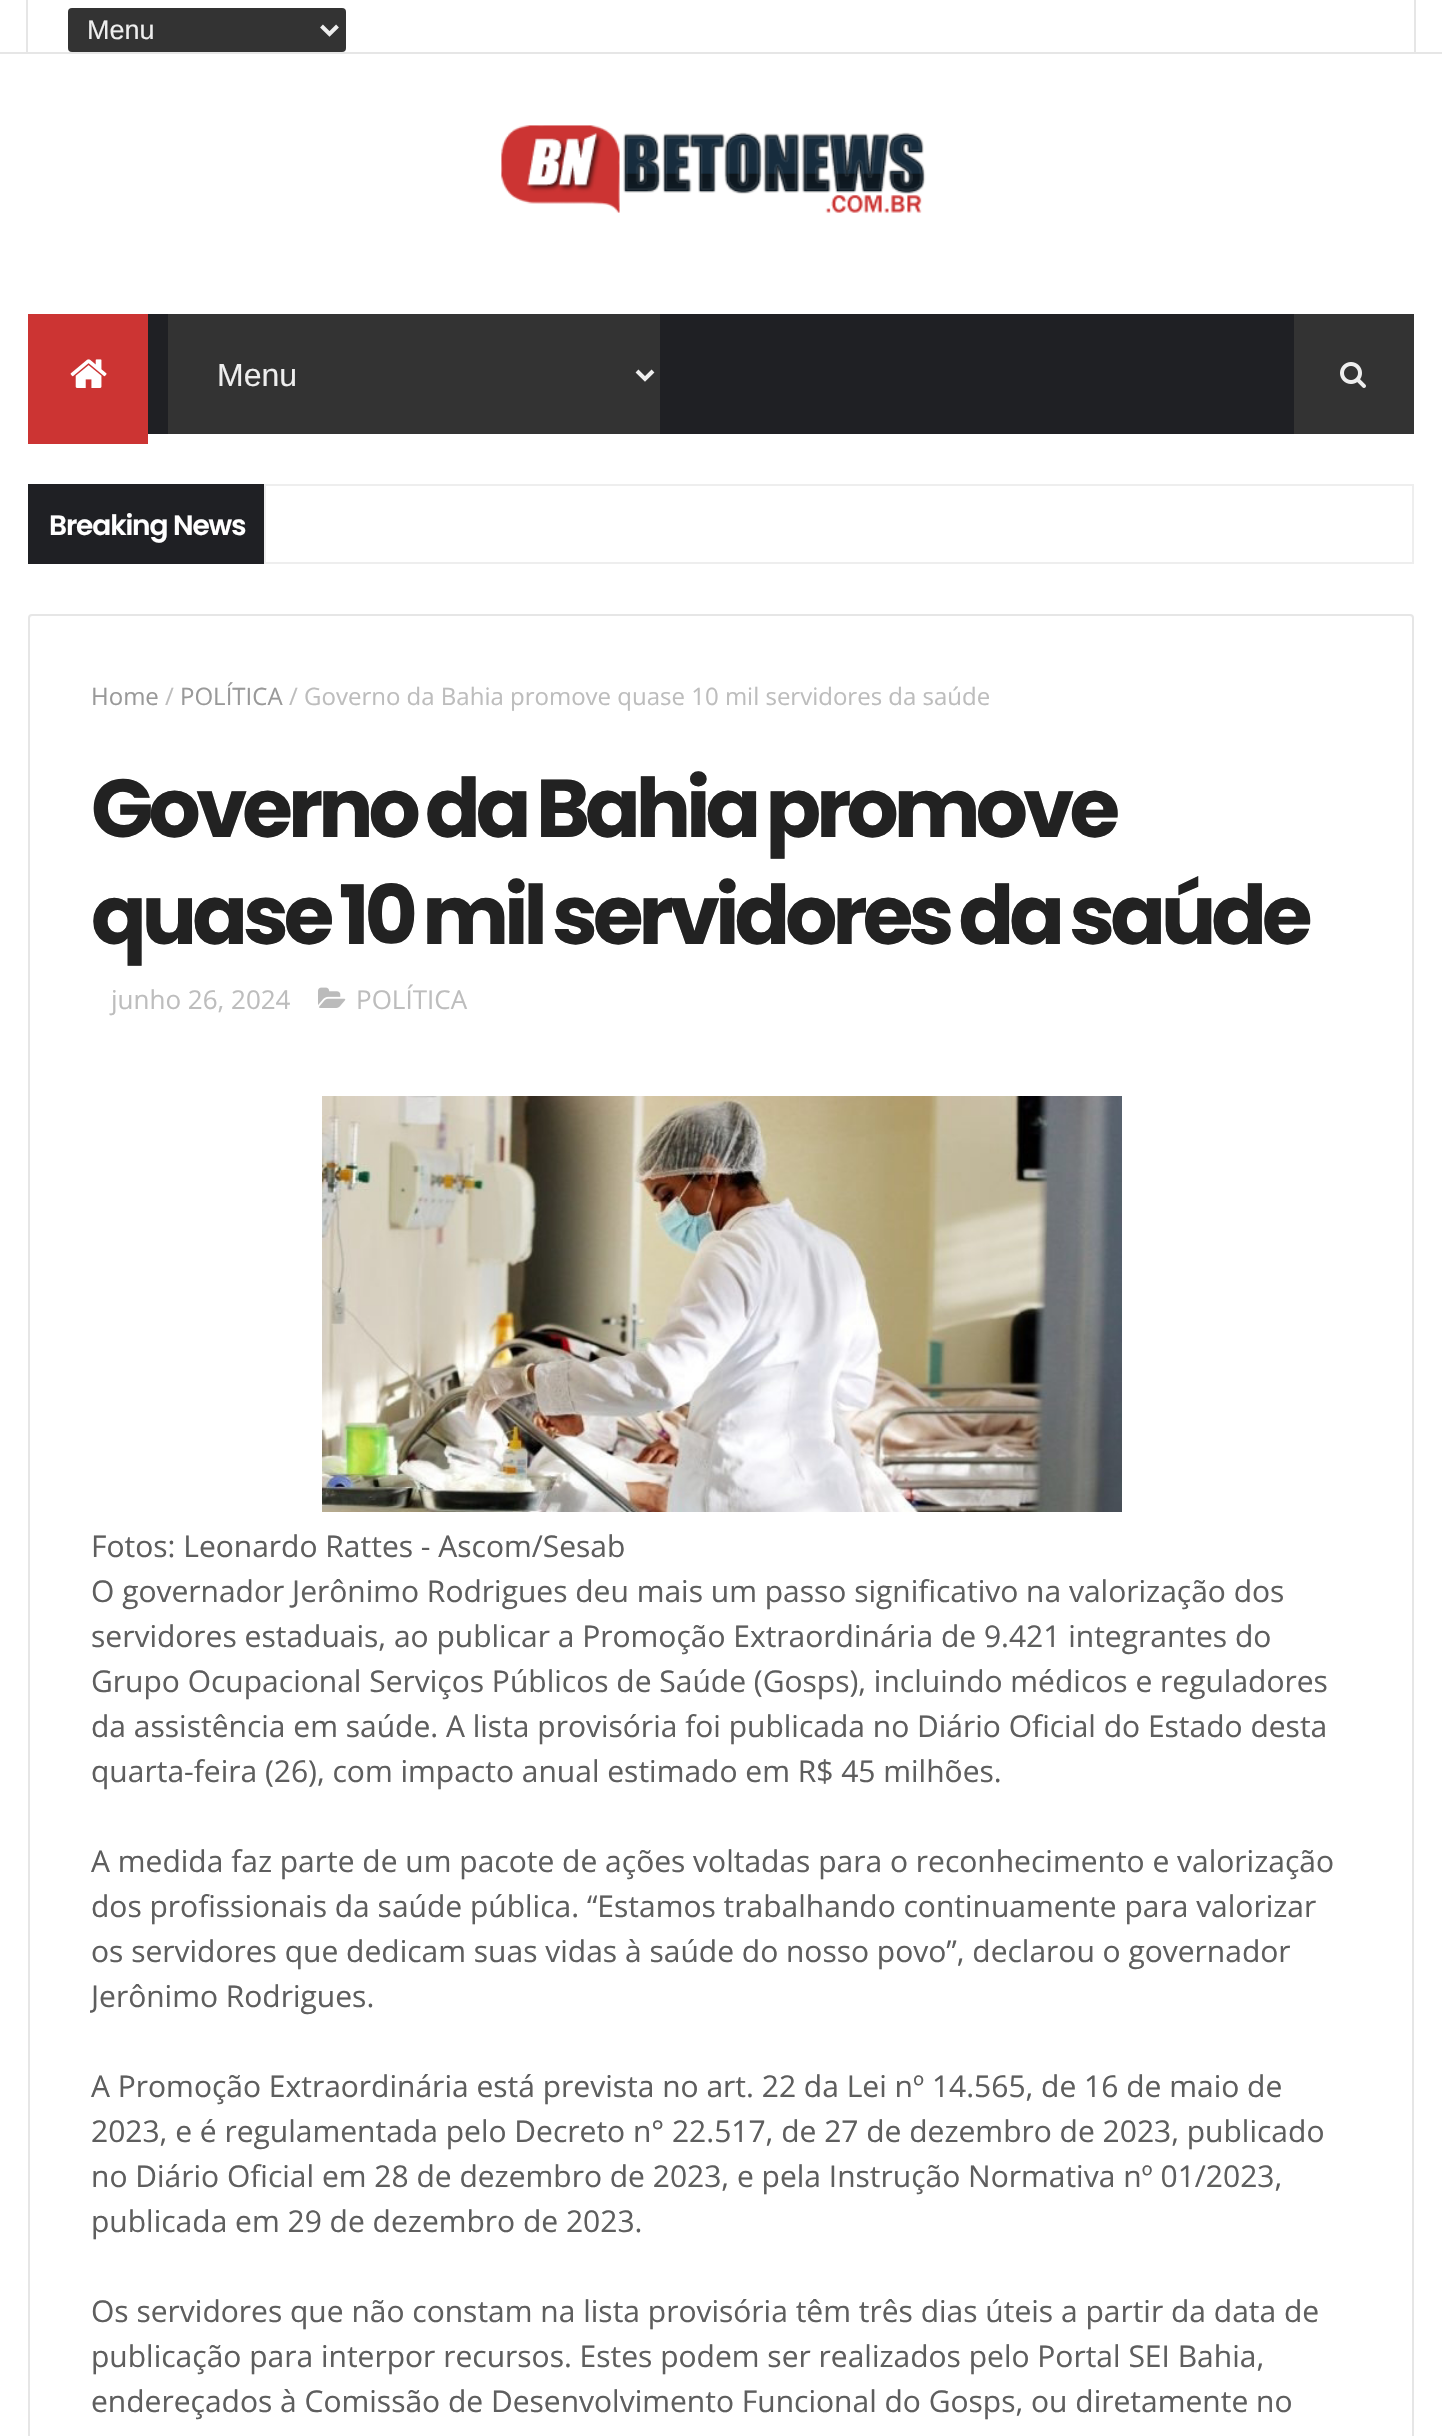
void draw(SkCanvas* canvas) {
  SkPaint paint;
  paint.setAntiAlias(true);
  auto face = [&](const char* family, int weight, float size, bool italic = false) {
    SkFontStyle style(weight, SkFontStyle::kNormal_Width,
      italic ? SkFontStyle::kItalic_Slant : SkFontStyle::kUpright_Slant);
    SkFont result(fontMgr->matchFamilyStyle(family, style), size);
    result.setSubpixel(true);
    return result;
  };
  auto writeSpaced = [&](const char* s, float x, float y, const SkFont& font, const SkPaint& ink, float letter, float word) {
    std::vector<SkGlyphID> glyphs(font.countText(s, strlen(s), SkTextEncoding::kUTF8));
    std::vector<float> xs(glyphs.size());
    font.textToGlyphs(s, strlen(s), SkTextEncoding::kUTF8, glyphs);
    font.getXPos(glyphs, xs, x);
    float extra = 0;
    for (size_t i = 0; i < glyphs.size(); i++) {
      xs[i] += extra;
      extra += letter + word * (glyphs[i] == font.unicharToGlyph(' '));
    }
    canvas->drawTextBlob(SkTextBlob::MakeFromPosHGlyphs(glyphs, xs, y, font), 0, 0, ink);
  };
  auto paste = [&](const char* path, float x, float y, float w, float h) {
    auto image = SkImages::DeferredFromEncodedData(SkData::MakeFromFileName(path));
    canvas->drawImageRect(image, SkRect::MakeXYWH(x, y, w, h), SkSamplingOptions());
  };
  auto shape = [&](const char* data, bool evenOdd = false) {
    SkPath result = *SkParsePath::FromSVGString(data);
    if (evenOdd) result.setFillType(SkPathFillType::kEvenOdd);
    return result;
  };
  canvas->clear(0xffffffff);
  {
    const struct { float x, y, w, h; SkColor color; } items[] = {
      {0, 52, 1442, 2, 0xffe6e6e6},
      {1414, 0, 2, 52, 0xffe6e6e6},
      {26, 0, 2, 52, 0xffe6e6e6},
    };
    for (auto [x, y, w, h, color] : items) {
      paint.setColor(color);
      canvas->drawRect(SkRect::MakeXYWH(x, y, w, h), paint);
    }
  }
  paint.setColor(0xff333333);
  canvas->drawRoundRect(SkRect::MakeXYWH(68, 8, 278, 44), 4, 4, paint);
  paint.setStroke(true);
  paint.setStrokeWidth(4);
  paint.setColor(0xffeeeeee);
  canvas->drawPath(shape("M321.5 26L329.5 34L337.5 26"), paint);
  paste("img/1.png", 501, 125, 425, 88);
  paint.setStroke(false);
  paint.setColor(0xff1f2024);
  canvas->drawRect(SkRect::MakeXYWH(148, 314, 1146, 120), paint);
  paint.setColor(0xffcc3433);
  canvas->drawRect(SkRect::MakeXYWH(28, 314, 120, 130), paint);
  paste("img/2.png", 70, 359, 37, 29);
  paint.setColor(0xff333333);
  canvas->drawRect(SkRect::MakeXYWH(168, 314, 492, 120), paint);
  paint.setStroke(true);
  paint.setColor(0xffeeeeee);
  canvas->drawPath(shape("M637 371L645 379L653 371"), paint);
  paint.setStroke(false);
  paint.setColor(0xff333333);
  canvas->drawRect(SkRect::MakeXYWH(1294, 314, 120, 120), paint);
  paste("img/3.png", 1340, 362, 26, 26);
  paint.setColor(0xff1f2024);
  canvas->drawRect(SkRect::MakeXYWH(28, 484, 236, 80), paint);
  paint.setStroke(true);
  paint.setStrokeWidth(2);
  paint.setColor(0xffeeeeee);
  canvas->drawRect(SkRect::MakeXYWH(265, 485, 1148, 78), paint);
  paint.setColor(0xffe6e6e6);
  canvas->drawRoundRect(SkRect::MakeXYWH(29, 615, 1384, 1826), 3, 3, paint);
  paste("img/4.png", 318, 987, 28, 21);
  paste("img/5.png", 322, 1096, 800, 416);
  auto f0 = face("Liberation Sans", 400, 27);
  paint.setStroke(false);
  paint.setColor(0xffeeeeee);
  canvas->drawString("Menu", 87, 39, f0, paint);
  auto f1 = face("Liberation Sans", 400, 32);
  canvas->drawString("Menu", 217, 386, f1, paint);
  auto f2 = face("Poppins", 600, 28);
  paint.setColor(0xffffffff);
  writeSpaced("Breaking News", 49, 535, f2, paint, -1.1f, 0);
  auto f3 = face("Open Sans", 400, 24);
  paint.setColor(0xff999999);
  canvas->drawString("Home", 91, 705, f3, paint);
  paint.setColor(0xffbdbdbd);
  canvas->drawString("/", 165, 705, f3, paint);
  paint.setColor(0xff999999);
  canvas->drawString("POLÍTICA", 180, 705, f3, paint);
  paint.setColor(0xffbdbdbd);
  canvas->drawString("/ Governo da Bahia promove quase 10 mil servidores da saúde", 289, 705, f3, paint);
  auto f4 = face("Poppins", 700, 82);
  paint.setColor(0xff222222);
  writeSpaced("Governo da Bahia promove", 91, 837, f4, paint, -4.9f, -3.25f);
  writeSpaced("quase 10 mil servidores da saúde", 91, 944, f4, paint, -4.9f, -3.25f);
  auto f5 = face("Open Sans", 400, 26);
  paint.setColor(0xffbdbdbd);
  canvas->drawString("junho 26, 2024", 111, 1009, f5, paint);
  canvas->drawString("POLÍTICA", 356, 1009, f5, paint);
  auto f6 = face("Open Sans", 400, 30);
  paint.setColor(0xff5e5e5e);
  {
    const struct { const char* s; float x, y; } items[] = {
      {"Fotos: Leonardo Rattes - Ascom/Sesab", 91, 1557},
      {"O governador Jerônimo Rodrigues deu mais um passo significativo na valorização dos", 91, 1602},
      {"servidores estaduais, ao publicar a Promoção Extraordinária de 9.421 integrantes do", 91, 1647},
      {"Grupo Ocupacional Serviços Públicos de Saúde (Gosps), incluindo médicos e reguladores", 91, 1692},
      {"da assistência em saúde. A lista provisória foi publicada no Diário Oficial do Estado desta", 91, 1737},
      {"quarta-feira (26), com impacto anual estimado em R$ 45 milhões.", 91, 1782},
      {"A medida faz parte de um pacote de ações voltadas para o reconhecimento e valorização", 91, 1872},
      {"dos profissionais da saúde pública. “Estamos trabalhando continuamente para valorizar", 91, 1917},
      {"os servidores que dedicam suas vidas à saúde do nosso povo”, declarou o governador", 91, 1962},
    };
    for (auto [s, x, y] : items) {
      canvas->drawString(s, x, y, f6, paint);
    }
  }
  canvas->save();
  canvas->clipRect(SkRect::MakeXYWH(90, 1050, 1262, 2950));
  canvas->drawString("Jerônimo Rodrigues.", 91, 2007, f6, paint);
  canvas->restore();
  {
    const struct { const char* s; float x, y; } items[] = {
      {"A Promoção Extraordinária está prevista no art. 22 da Lei nº 14.565, de 16 de maio de", 91, 2097},
      {"2023, e é regulamentada pelo Decreto n° 22.517, de 27 de dezembro de 2023, publicado", 91, 2142},
      {"no Diário Oficial em 28 de dezembro de 2023, e pela Instrução Normativa nº 01/2023,", 91, 2187},
      {"publicada em 29 de dezembro de 2023.", 91, 2232},
      {"Os servidores que não constam na lista provisória têm três dias úteis a partir da data de", 91, 2322},
      {"publicação para interpor recursos. Estes podem ser realizados pelo Portal SEI Bahia,", 91, 2367},
      {"endereçados à Comissão de Desenvolvimento Funcional do Gosps, ou diretamente no", 91, 2412},
    };
    for (auto [s, x, y] : items) {
      canvas->drawString(s, x, y, f6, paint);
    }
  }
}
